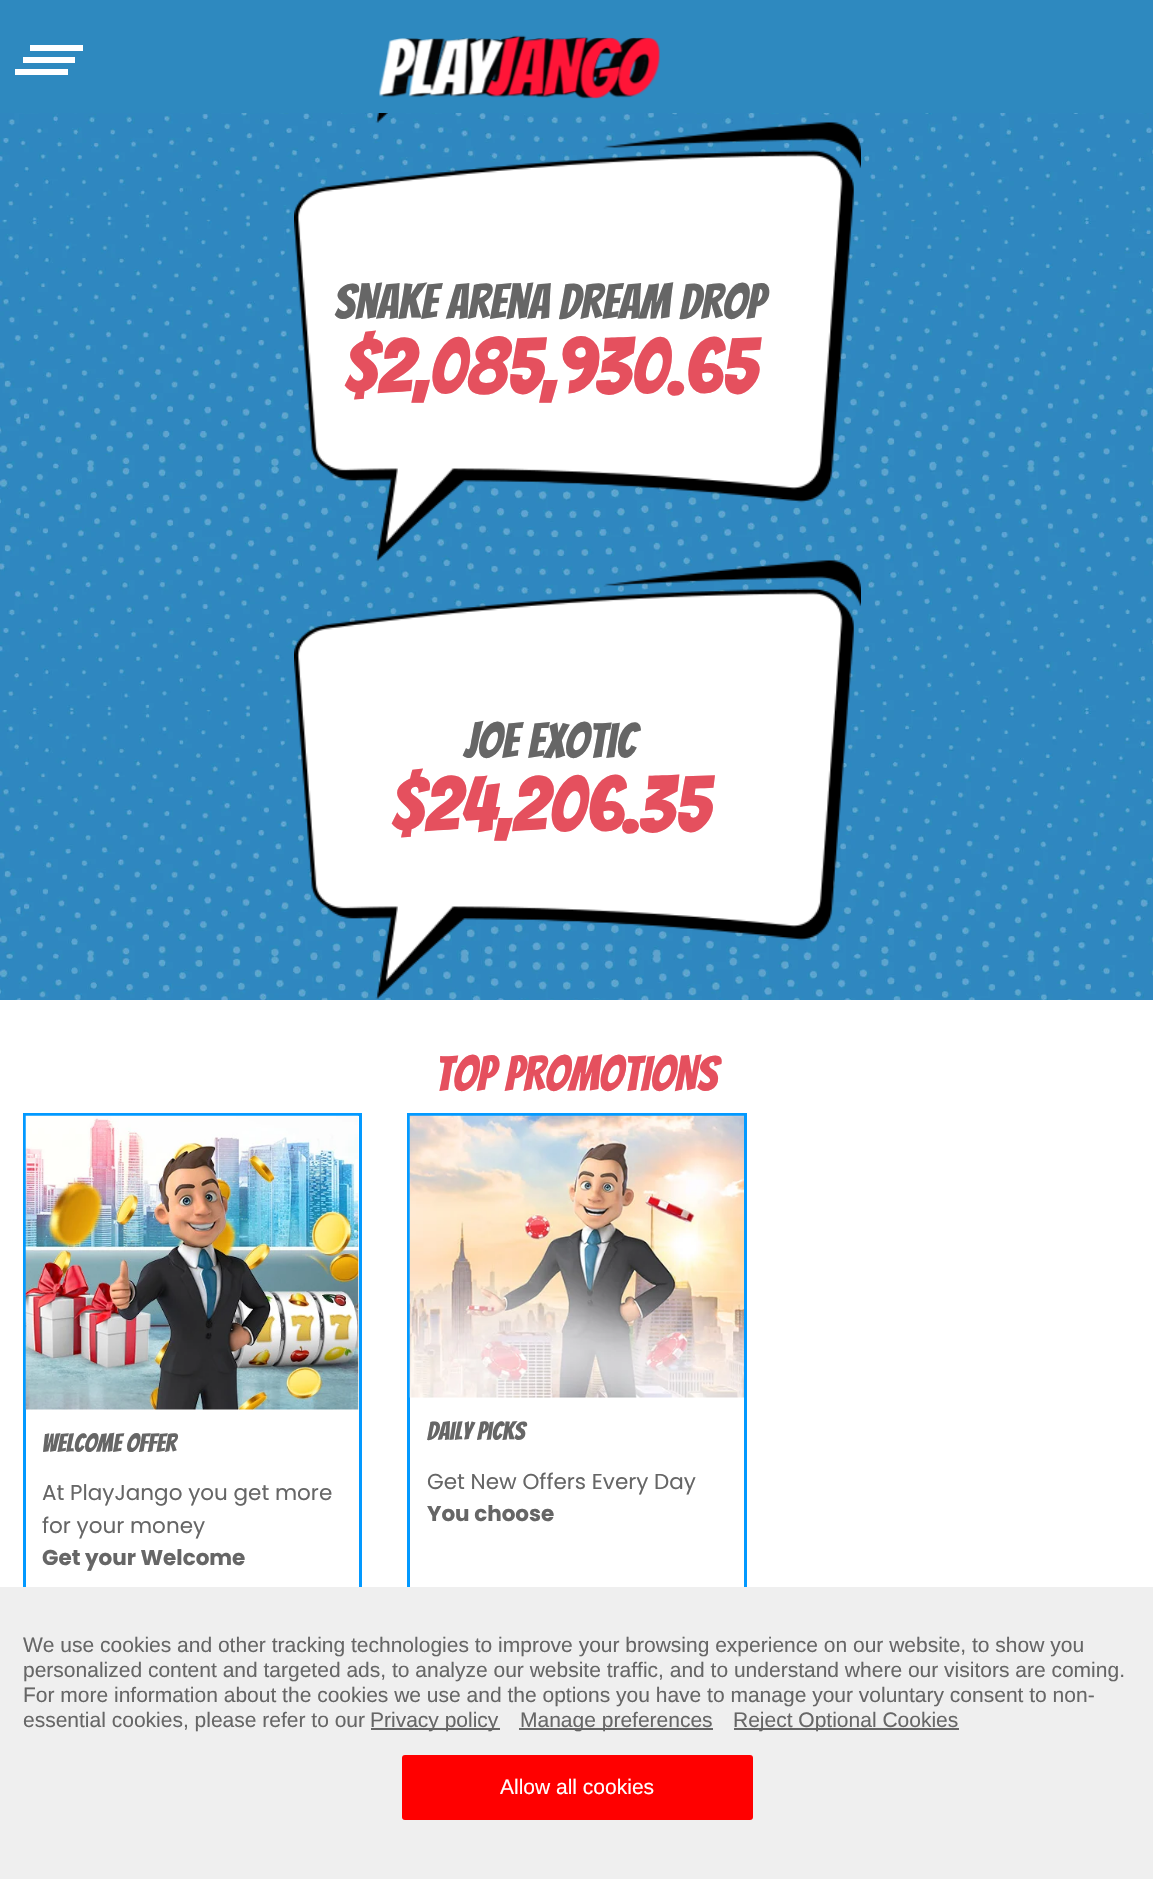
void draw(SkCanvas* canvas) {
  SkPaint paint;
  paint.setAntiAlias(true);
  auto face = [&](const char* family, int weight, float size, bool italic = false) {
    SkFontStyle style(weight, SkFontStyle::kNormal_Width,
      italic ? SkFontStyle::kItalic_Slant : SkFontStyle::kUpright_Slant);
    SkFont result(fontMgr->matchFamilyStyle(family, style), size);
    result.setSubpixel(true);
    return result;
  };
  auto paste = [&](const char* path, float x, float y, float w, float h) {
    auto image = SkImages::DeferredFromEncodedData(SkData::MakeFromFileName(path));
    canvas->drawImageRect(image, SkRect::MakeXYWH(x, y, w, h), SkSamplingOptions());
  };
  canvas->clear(0xffffffff);
  {
    const struct { float x, y, w, h; SkColor color; } items[] = {
      {0, 0, 1153, 113, 0xff2e89bf},
      {30, 45, 53, 6, 0xffffffff},
      {23, 57, 52, 6, 0xffffffff},
      {15, 69, 53, 6, 0xffffffff},
    };
    for (auto [x, y, w, h, color] : items) {
      paint.setColor(color);
      canvas->drawRect(SkRect::MakeXYWH(x, y, w, h), paint);
    }
  }
  paste("img/1.png", 379, 35, 281, 64);
  paste("img/2.png", 0, 113, 1153, 887);
  paste("img/3.png", 375, 113, 13, 10);
  paste("img/4.png", 294, 122, 567, 439);
  paste("img/5.png", 294, 560, 567, 439);
  paint.setStroke(true);
  paint.setStrokeWidth(3);
  paint.setColor(0xff0299ff);
  canvas->drawRect(SkRect::MakeXYWH(24.5f, 1114.5f, 336, 602), paint);
  paste("img/6.png", 25, 1115, 334, 295);
  canvas->drawRect(SkRect::MakeXYWH(408.5f, 1114.5f, 337, 579), paint);
  paste("img/7.png", 409, 1115, 335, 283);
  paint.setStroke(false);
  {
    const struct { float x, y, w, h; SkColor color; } items[] = {
      {0, 1587, 1153, 292, 0xffefefef},
      {371, 1728, 129, 2, 0xff666666},
      {519, 1728, 194, 2, 0xff666666},
      {734, 1728, 225, 2, 0xff666666},
    };
    for (auto [x, y, w, h, color] : items) {
      paint.setColor(color);
      canvas->drawRect(SkRect::MakeXYWH(x, y, w, h), paint);
    }
  }
  paint.setColor(0xffff0000);
  canvas->drawRoundRect(SkRect::MakeXYWH(402, 1755, 351, 65), 3, 3, paint);
  auto f0 = face("Bangers", 400, 48.75f);
  paint.setColor(0xff666666);
  canvas->drawString("Snake Arena Dream Drop", 334, 319, f0, paint);
  auto f1 = face("Bangers", 400, 78);
  paint.setColor(0xffe5505e);
  canvas->drawString("$2,085,930.65", 343, 394, f1, paint);
  paint.setColor(0xff666666);
  canvas->drawString("Joe Exotic", 464, 758, f0, paint);
  paint.setColor(0xffe5505e);
  canvas->drawString("$24,206.35", 390, 832, f1, paint);
  canvas->drawString("TOP PROMOTIONS", 435, 1091, f0, paint);
  auto f2 = face("Bangers", 400, 25.5f);
  paint.setColor(0xff666666);
  canvas->drawString("Welcome Offer", 42, 1452, f2, paint);
  auto f3 = face("Poppins", 400, 21.5f);
  canvas->drawString("At PlayJango you get more", 42, 1500, f3, paint);
  canvas->drawString("for your money", 42, 1533, f3, paint);
  auto f4 = face("Poppins", 700, 21.5f);
  canvas->drawString("Get your Welcome", 42, 1565, f4, paint);
  canvas->drawString("Daily Picks", 427, 1440, f2, paint);
  canvas->drawString("Get New Offers Every Day", 427, 1489, f3, paint);
  canvas->drawString("You choose", 427, 1521, f4, paint);
  auto f5 = face("Liberation Sans", 400, 21);
  {
    const struct { const char* s; float x, y; } items[] = {
      {"We use cookies and other tracking technologies to improve your browsing experience on our website, to show you", 23, 1652},
      {"personalized content and targeted ads, to analyze our website traffic, and to understand where our visitors are coming.", 23, 1677},
      {"For more information about the cookies we use and the options you have to manage your voluntary consent to non-", 23, 1702},
      {"essential cookies, please refer to our", 23, 1727},
      {"Privacy policy", 370, 1727},
      {"Manage preferences", 520, 1727},
      {"Reject Optional Cookies", 733, 1727},
    };
    for (auto [s, x, y] : items) {
      canvas->drawString(s, x, y, f5, paint);
    }
  }
  paint.setColor(0xffffffff);
  canvas->drawString("Allow all cookies", 500, 1794, f5, paint);
}
